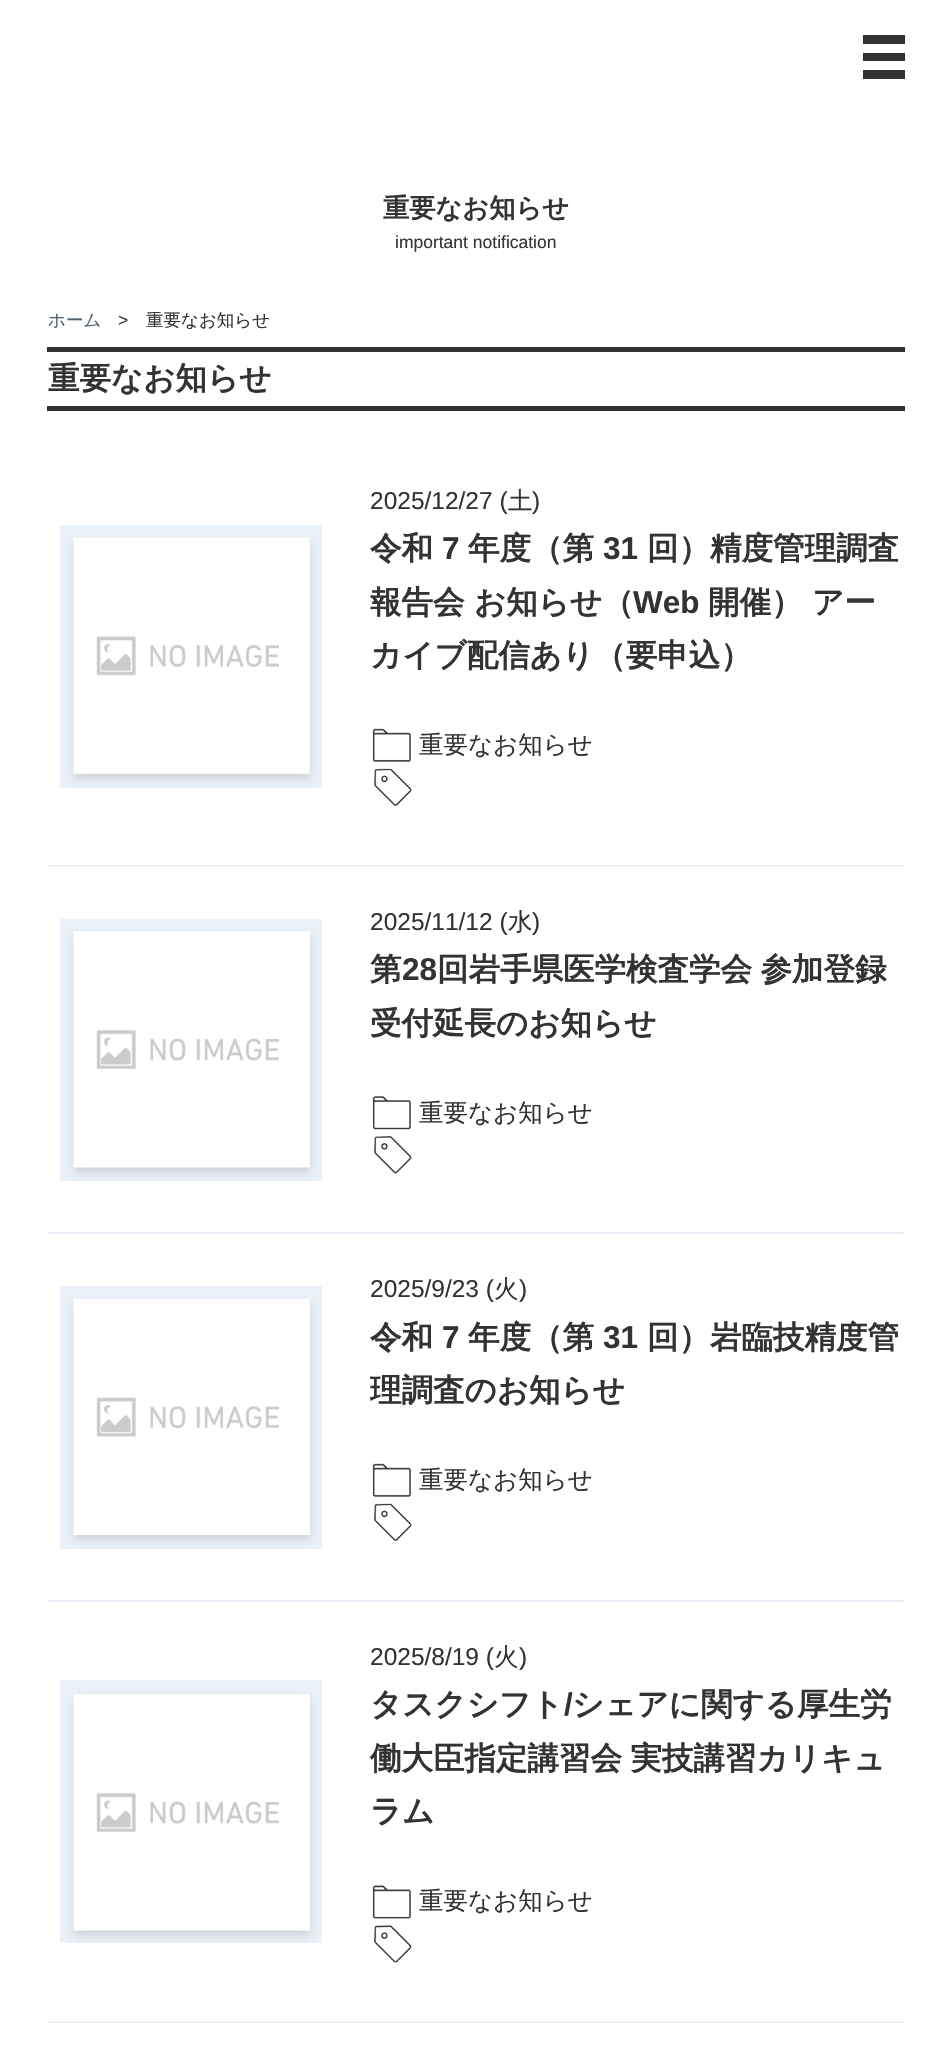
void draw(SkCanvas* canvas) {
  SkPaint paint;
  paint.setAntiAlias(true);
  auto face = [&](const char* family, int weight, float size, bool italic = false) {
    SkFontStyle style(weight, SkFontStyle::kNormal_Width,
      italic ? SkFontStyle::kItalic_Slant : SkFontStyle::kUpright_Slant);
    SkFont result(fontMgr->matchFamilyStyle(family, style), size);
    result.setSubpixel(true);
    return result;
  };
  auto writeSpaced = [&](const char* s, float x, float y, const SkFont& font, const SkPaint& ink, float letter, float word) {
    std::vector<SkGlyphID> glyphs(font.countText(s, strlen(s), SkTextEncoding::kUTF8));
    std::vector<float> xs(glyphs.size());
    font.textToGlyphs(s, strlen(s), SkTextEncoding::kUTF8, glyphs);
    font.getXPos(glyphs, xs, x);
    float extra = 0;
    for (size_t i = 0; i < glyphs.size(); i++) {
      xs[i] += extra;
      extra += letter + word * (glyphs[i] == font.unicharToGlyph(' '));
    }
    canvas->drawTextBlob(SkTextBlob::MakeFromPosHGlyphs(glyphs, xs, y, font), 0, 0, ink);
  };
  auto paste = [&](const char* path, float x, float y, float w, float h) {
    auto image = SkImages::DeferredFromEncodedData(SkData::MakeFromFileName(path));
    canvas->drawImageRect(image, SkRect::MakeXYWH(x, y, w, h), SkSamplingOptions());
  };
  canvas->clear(0xffffffff);
  {
    const struct { float x, y, w, h; SkColor color; } items[] = {
      {863, 35, 42, 9, 0xff333333},
      {863, 53, 42, 8, 0xff333333},
      {863, 70, 42, 9, 0xff333333},
      {47, 347, 858, 5, 0xff333333},
      {47, 406, 858, 5, 0xff333333},
      {47, 865, 858, 2, 0xffebf1f8},
      {60, 525, 262, 263, 0xffebf1f8},
    };
    for (auto [x, y, w, h, color] : items) {
      paint.setColor(color);
      canvas->drawRect(SkRect::MakeXYWH(x, y, w, h), paint);
    }
  }
  paint.setColor(0x29333333);
  paint.setMaskFilter(SkMaskFilter::MakeBlur(kNormal_SkBlurStyle, 5));
  canvas->drawRect(SkRect::MakeXYWH(74, 543, 236, 236), paint);
  paint.setMaskFilter(nullptr);
  paste("img/1.png", 73, 537, 237, 237);
  paste("img/2.png", 372, 728, 39, 34);
  paste("img/3.png", 374, 768, 38, 38);
  paint.setColor(0xffebf1f8);
  canvas->drawRect(SkRect::MakeXYWH(47, 1232, 858, 2), paint);
  canvas->drawRect(SkRect::MakeXYWH(60, 919, 262, 262), paint);
  paint.setColor(0x29333333);
  paint.setMaskFilter(SkMaskFilter::MakeBlur(kNormal_SkBlurStyle, 5));
  canvas->drawRect(SkRect::MakeXYWH(74, 936, 236, 237), paint);
  paint.setMaskFilter(nullptr);
  paste("img/4.png", 73, 931, 237, 237);
  paste("img/5.png", 372, 1096, 39, 34);
  paste("img/6.png", 374, 1136, 38, 38);
  paint.setColor(0xffebf1f8);
  canvas->drawRect(SkRect::MakeXYWH(47, 1600, 858, 2), paint);
  canvas->drawRect(SkRect::MakeXYWH(60, 1286, 262, 263), paint);
  paint.setColor(0x29333333);
  paint.setMaskFilter(SkMaskFilter::MakeBlur(kNormal_SkBlurStyle, 5));
  canvas->drawRect(SkRect::MakeXYWH(74, 1304, 236, 236), paint);
  paint.setMaskFilter(nullptr);
  paste("img/7.png", 73, 1298, 237, 237);
  paste("img/2.png", 372, 1463, 39, 34);
  paste("img/3.png", 374, 1503, 38, 38);
  paint.setColor(0xffebf1f8);
  canvas->drawRect(SkRect::MakeXYWH(47, 2021, 858, 2), paint);
  canvas->drawRect(SkRect::MakeXYWH(60, 1680, 262, 263), paint);
  paint.setColor(0x29333333);
  paint.setMaskFilter(SkMaskFilter::MakeBlur(kNormal_SkBlurStyle, 5));
  canvas->drawRect(SkRect::MakeXYWH(74, 1699, 236, 237), paint);
  paint.setMaskFilter(nullptr);
  paste("img/4.png", 73, 1694, 237, 237);
  paste("img/8.png", 372, 1885, 39, 34);
  paste("img/9.png", 374, 1925, 38, 38);
  auto f0 = face("WenQuanYi Zen Hei", 700, 26.25f);
  paint.setColor(0xff333333);
  canvas->drawString("重要なお知らせ", 383, 217, f0, paint);
  auto f1 = face("Liberation Sans", 400, 17.5f);
  canvas->drawString("important notification", 395, 248, f1, paint);
  auto f2 = face("WenQuanYi Zen Hei", 500, 17.5f);
  paint.setColor(0xff4f5f6f);
  canvas->drawString("ホーム", 48, 326, f2, paint);
  paint.setColor(0xff333333);
  canvas->drawString(">", 118, 326, f1, paint);
  canvas->save();
  canvas->clipRect(SkRect::MakeXYWH(119, 312, 168, 17));
  canvas->drawString("重要なお知らせ", 146, 326, f2, paint);
  canvas->restore();
  auto f3 = face("WenQuanYi Zen Hei", 700, 31.5f);
  canvas->drawString("重要なお知らせ", 48, 389, f3, paint);
  auto f4 = face("Liberation Sans", 400, 24.5f);
  canvas->drawString("2025/12/27 (", 370, 509, f4, paint);
  auto f5 = face("WenQuanYi Zen Hei", 500, 24.5f);
  canvas->drawString("土", 508, 509, f5, paint);
  canvas->drawString(")", 532, 509, f4, paint);
  canvas->drawString("令和", 370, 559, f3, paint);
  auto f6 = face("Liberation Sans", 700, 31.5f);
  canvas->drawString("7", 442, 559, f6, paint);
  canvas->drawString("年度（第", 468, 559, f3, paint);
  canvas->drawString("31", 603, 559, f6, paint);
  canvas->drawString("回）精度管理調査", 647, 559, f3, paint);
  canvas->drawString("報告会 お知らせ（", 370, 613, f3, paint);
  canvas->drawString("Web", 633, 613, f6, paint);
  canvas->drawString("開催） アー", 708, 613, f3, paint);
  canvas->drawString("カイブ配信あり（要申込）", 370, 666, f3, paint);
  canvas->drawString("重要なお知らせ", 419, 753, f5, paint);
  canvas->drawString("2025/11/12 (", 370, 930, f4, paint);
  canvas->drawString("水", 508, 930, f5, paint);
  canvas->drawString(")", 532, 930, f4, paint);
  canvas->drawString("第", 370, 980, f3, paint);
  canvas->drawString("28", 402, 980, f6, paint);
  writeSpaced("回岩手県医学検査学会 参加登録", 437, 980, f3, paint, 0, -1);
  canvas->drawString("受付延長のお知らせ", 370, 1034, f3, paint);
  canvas->drawString("重要なお知らせ", 419, 1121, f5, paint);
  canvas->drawString("2025/9/23 (", 370, 1297, f4, paint);
  canvas->drawString("火", 494, 1297, f5, paint);
  canvas->drawString(")", 519, 1297, f4, paint);
  canvas->drawString("令和", 370, 1348, f3, paint);
  canvas->drawString("7", 442, 1348, f6, paint);
  canvas->drawString("年度（第", 468, 1348, f3, paint);
  canvas->drawString("31", 603, 1348, f6, paint);
  canvas->drawString("回）岩臨技精度管", 647, 1348, f3, paint);
  canvas->drawString("理調査のお知らせ", 370, 1401, f3, paint);
  canvas->drawString("重要なお知らせ", 419, 1488, f5, paint);
  canvas->drawString("2025/8/19 (", 370, 1665, f4, paint);
  canvas->drawString("火", 494, 1665, f5, paint);
  canvas->drawString(")", 519, 1665, f4, paint);
  canvas->drawString("タスクシフト", 370, 1715, f3, paint);
  canvas->drawString("/", 564, 1715, f6, paint);
  canvas->drawString("シェアに関する厚生労", 572, 1715, f3, paint);
  writeSpaced("働大臣指定講習会 実技講習カリキュ", 370, 1769, f3, paint, 0, -1);
  canvas->drawString("ラム", 370, 1822, f3, paint);
  canvas->drawString("重要なお知らせ", 419, 1909, f5, paint);
}
